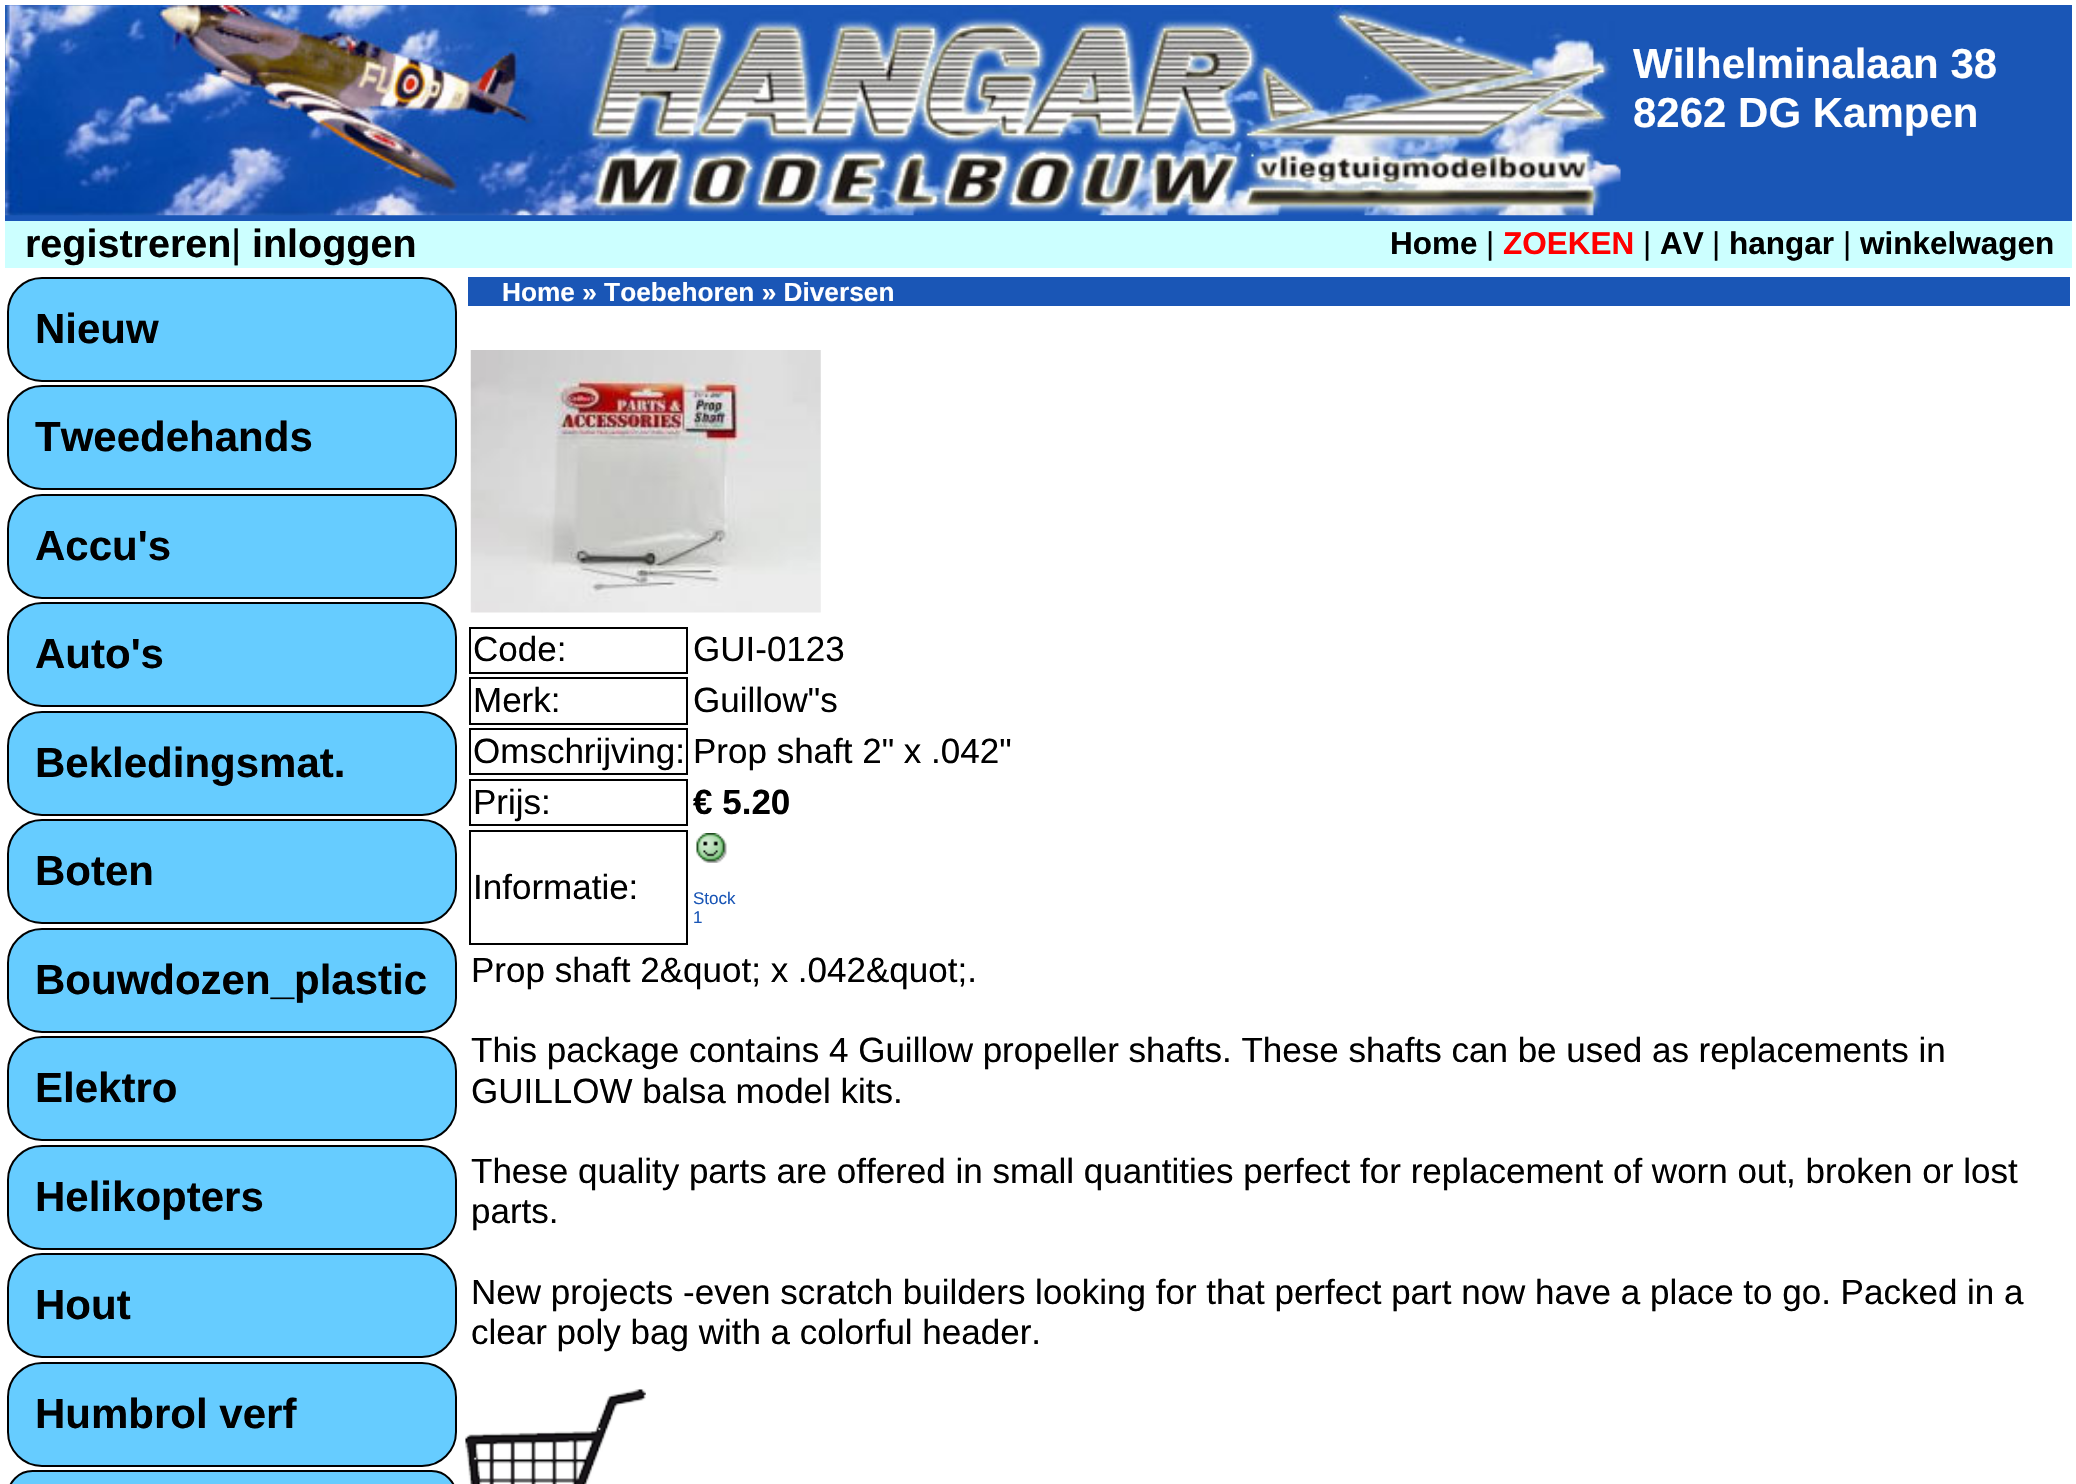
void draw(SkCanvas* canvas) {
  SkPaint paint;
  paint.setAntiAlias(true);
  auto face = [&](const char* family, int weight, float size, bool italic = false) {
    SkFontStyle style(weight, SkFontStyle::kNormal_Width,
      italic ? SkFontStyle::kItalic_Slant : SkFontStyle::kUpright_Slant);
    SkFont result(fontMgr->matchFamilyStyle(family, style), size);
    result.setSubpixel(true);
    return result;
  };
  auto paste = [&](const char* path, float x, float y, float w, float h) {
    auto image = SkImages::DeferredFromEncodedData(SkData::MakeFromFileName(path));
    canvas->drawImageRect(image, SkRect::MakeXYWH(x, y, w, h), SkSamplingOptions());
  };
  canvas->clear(0xffffffff);
  paint.setColor(0xff1a56b6);
  canvas->drawRect(SkRect::MakeXYWH(5, 5, 2067, 216), paint);
  paste("img/1.png", 5, 5, 1616, 211);
  paint.setColor(0xffccffff);
  canvas->drawRect(SkRect::MakeXYWH(5, 221, 2067, 47), paint);
  paint.setColor(0xff66ccff);
  canvas->drawRoundRect(SkRect::MakeXYWH(8, 278, 448, 103), 34, 34, paint);
  paint.setStroke(true);
  paint.setStrokeWidth(2);
  paint.setColor(0xff000000);
  canvas->drawRoundRect(SkRect::MakeXYWH(8, 278, 448, 103), 34, 34, paint);
  paint.setStroke(false);
  paint.setColor(0xff66ccff);
  canvas->drawRoundRect(SkRect::MakeXYWH(8, 386, 448, 103), 34, 34, paint);
  paint.setStroke(true);
  paint.setColor(0xff000000);
  canvas->drawRoundRect(SkRect::MakeXYWH(8, 386, 448, 103), 34, 34, paint);
  paint.setStroke(false);
  paint.setColor(0xff66ccff);
  canvas->drawRoundRect(SkRect::MakeXYWH(8, 495, 448, 103), 34, 34, paint);
  paint.setStroke(true);
  paint.setColor(0xff000000);
  canvas->drawRoundRect(SkRect::MakeXYWH(8, 495, 448, 103), 34, 34, paint);
  paint.setStroke(false);
  paint.setColor(0xff66ccff);
  canvas->drawRoundRect(SkRect::MakeXYWH(8, 603, 448, 103), 34, 34, paint);
  paint.setStroke(true);
  paint.setColor(0xff000000);
  canvas->drawRoundRect(SkRect::MakeXYWH(8, 603, 448, 103), 34, 34, paint);
  paint.setStroke(false);
  paint.setColor(0xff66ccff);
  canvas->drawRoundRect(SkRect::MakeXYWH(8, 712, 448, 103), 34, 34, paint);
  paint.setStroke(true);
  paint.setColor(0xff000000);
  canvas->drawRoundRect(SkRect::MakeXYWH(8, 712, 448, 103), 34, 34, paint);
  paint.setStroke(false);
  paint.setColor(0xff66ccff);
  canvas->drawRoundRect(SkRect::MakeXYWH(8, 820, 448, 103), 34, 34, paint);
  paint.setStroke(true);
  paint.setColor(0xff000000);
  canvas->drawRoundRect(SkRect::MakeXYWH(8, 820, 448, 103), 34, 34, paint);
  paint.setStroke(false);
  paint.setColor(0xff66ccff);
  canvas->drawRoundRect(SkRect::MakeXYWH(8, 929, 448, 103), 34, 34, paint);
  paint.setStroke(true);
  paint.setColor(0xff000000);
  canvas->drawRoundRect(SkRect::MakeXYWH(8, 929, 448, 103), 34, 34, paint);
  paint.setStroke(false);
  paint.setColor(0xff66ccff);
  canvas->drawRoundRect(SkRect::MakeXYWH(8, 1037, 448, 103), 34, 34, paint);
  paint.setStroke(true);
  paint.setColor(0xff000000);
  canvas->drawRoundRect(SkRect::MakeXYWH(8, 1037, 448, 103), 34, 34, paint);
  paint.setStroke(false);
  paint.setColor(0xff66ccff);
  canvas->drawRoundRect(SkRect::MakeXYWH(8, 1146, 448, 103), 34, 34, paint);
  paint.setStroke(true);
  paint.setColor(0xff000000);
  canvas->drawRoundRect(SkRect::MakeXYWH(8, 1146, 448, 103), 34, 34, paint);
  paint.setStroke(false);
  paint.setColor(0xff66ccff);
  canvas->drawRoundRect(SkRect::MakeXYWH(8, 1254, 448, 103), 34, 34, paint);
  paint.setStroke(true);
  paint.setColor(0xff000000);
  canvas->drawRoundRect(SkRect::MakeXYWH(8, 1254, 448, 103), 34, 34, paint);
  paint.setStroke(false);
  paint.setColor(0xff66ccff);
  canvas->drawRoundRect(SkRect::MakeXYWH(8, 1363, 448, 103), 34, 34, paint);
  paint.setStroke(true);
  paint.setColor(0xff000000);
  canvas->drawRoundRect(SkRect::MakeXYWH(8, 1363, 448, 103), 34, 34, paint);
  paint.setStroke(false);
  paint.setColor(0xff66ccff);
  canvas->drawRoundRect(SkRect::MakeXYWH(8, 1471, 448, 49), 34, 34, paint);
  paint.setStroke(true);
  paint.setColor(0xff000000);
  canvas->drawRoundRect(SkRect::MakeXYWH(8, 1471, 448, 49), 34, 34, paint);
  paint.setStroke(false);
  paint.setColor(0xff1a56b6);
  canvas->drawRect(SkRect::MakeXYWH(468, 277, 1602, 29), paint);
  paste("img/2.png", 470, 350, 351, 263);
  paint.setStroke(true);
  paint.setColor(0xff000000);
  canvas->drawRect(SkRect::MakeXYWH(470, 628, 217, 45), paint);
  canvas->drawRect(SkRect::MakeXYWH(470, 678, 217, 46), paint);
  canvas->drawRect(SkRect::MakeXYWH(470, 729, 217, 45), paint);
  canvas->drawRect(SkRect::MakeXYWH(470, 780, 217, 45), paint);
  canvas->drawRect(SkRect::MakeXYWH(470, 831, 217, 113), paint);
  paste("img/3.png", 696, 833, 31, 30);
  paste("img/4.png", 465, 1389, 181, 95);
  auto f0 = face("Liberation Sans", 700, 42);
  paint.setStroke(false);
  paint.setColor(0xffffffff);
  canvas->drawString("Wilhelminalaan 38", 1633, 78, f0, paint);
  canvas->drawString("8262 DG Kampen", 1633, 127, f0, paint);
  auto f1 = face("Liberation Sans", 700, 39.5f);
  paint.setColor(0xff000000);
  canvas->drawString("registreren", 25, 257, f1, paint);
  auto f2 = face("Liberation Sans", 400, 39.5f);
  canvas->drawString("|", 231, 257, f2, paint);
  canvas->drawString("inloggen", 252, 257, f1, paint);
  auto f3 = face("Liberation Sans", 700, 31.5f);
  canvas->drawString("Home", 1390, 254, f3, paint);
  auto f4 = face("Liberation Sans", 400, 31.5f);
  canvas->drawString("|", 1486, 254, f4, paint);
  paint.setColor(0xffff0000);
  canvas->drawString("ZOEKEN", 1503, 254, f3, paint);
  paint.setColor(0xff000000);
  canvas->drawString("|", 1643, 254, f4, paint);
  canvas->drawString("AV", 1660, 254, f3, paint);
  canvas->drawString("|", 1712, 254, f4, paint);
  canvas->drawString("hangar", 1729, 254, f3, paint);
  canvas->drawString("|", 1843, 254, f4, paint);
  canvas->drawString("winkelwagen", 1860, 254, f3, paint);
  {
    const struct { const char* s; float x, y; } items[] = {
      {"Nieuw", 35, 343},
      {"Tweedehands", 35, 451},
      {"Accu's", 35, 560},
      {"Auto's", 35, 668},
      {"Bekledingsmat.", 35, 777},
      {"Boten", 35, 885},
      {"Bouwdozen_plastic", 35, 994},
      {"Elektro", 35, 1102},
      {"Helikopters", 35, 1211},
      {"Hout", 35, 1319},
      {"Humbrol verf", 35, 1428},
    };
    for (auto [s, x, y] : items) {
      canvas->drawString(s, x, y, f0, paint);
    }
  }
  auto f5 = face("Liberation Sans", 700, 26.25f);
  paint.setColor(0xffffffff);
  canvas->drawString("Home » Toebehoren » Diversen", 502, 301, f5, paint);
  auto f6 = face("Liberation Sans", 400, 35);
  paint.setColor(0xff000000);
  {
    const struct { const char* s; float x, y; } items[] = {
      {"Code:", 473, 661},
      {"GUI-0123", 693, 661},
      {"Merk:", 473, 712},
      {"Guillow\"s", 693, 712},
      {"Omschrijving:", 473, 763},
      {"Prop shaft 2\" x .042\"", 693, 763},
      {"Prijs:", 473, 814},
    };
    for (auto [s, x, y] : items) {
      canvas->drawString(s, x, y, f6, paint);
    }
  }
  auto f7 = face("Liberation Sans", 700, 35);
  canvas->drawString("€ 5.20", 693, 814, f7, paint);
  canvas->drawString("Informatie:", 473, 899, f6, paint);
  auto f8 = face("Liberation Sans", 400, 17);
  paint.setColor(0xff1a56b6);
  canvas->drawString("Stock", 693, 904, f8, paint);
  canvas->drawString("1", 693, 923, f8, paint);
  paint.setColor(0xff000000);
  {
    const struct { const char* s; float x, y; } items[] = {
      {"Prop shaft 2&quot; x .042&quot;.", 471, 982},
      {"This package contains 4 Guillow propeller shafts. These shafts can be used as replacements in", 471, 1062},
      {"GUILLOW balsa model kits.", 471, 1103},
      {"These quality parts are offered in small quantities perfect for replacement of worn out, broken or lost", 471, 1183},
      {"parts.", 471, 1223},
      {"New projects -even scratch builders looking for that perfect part now have a place to go. Packed in a", 471, 1304},
      {"clear poly bag with a colorful header.", 471, 1344},
    };
    for (auto [s, x, y] : items) {
      canvas->drawString(s, x, y, f6, paint);
    }
  }
}
